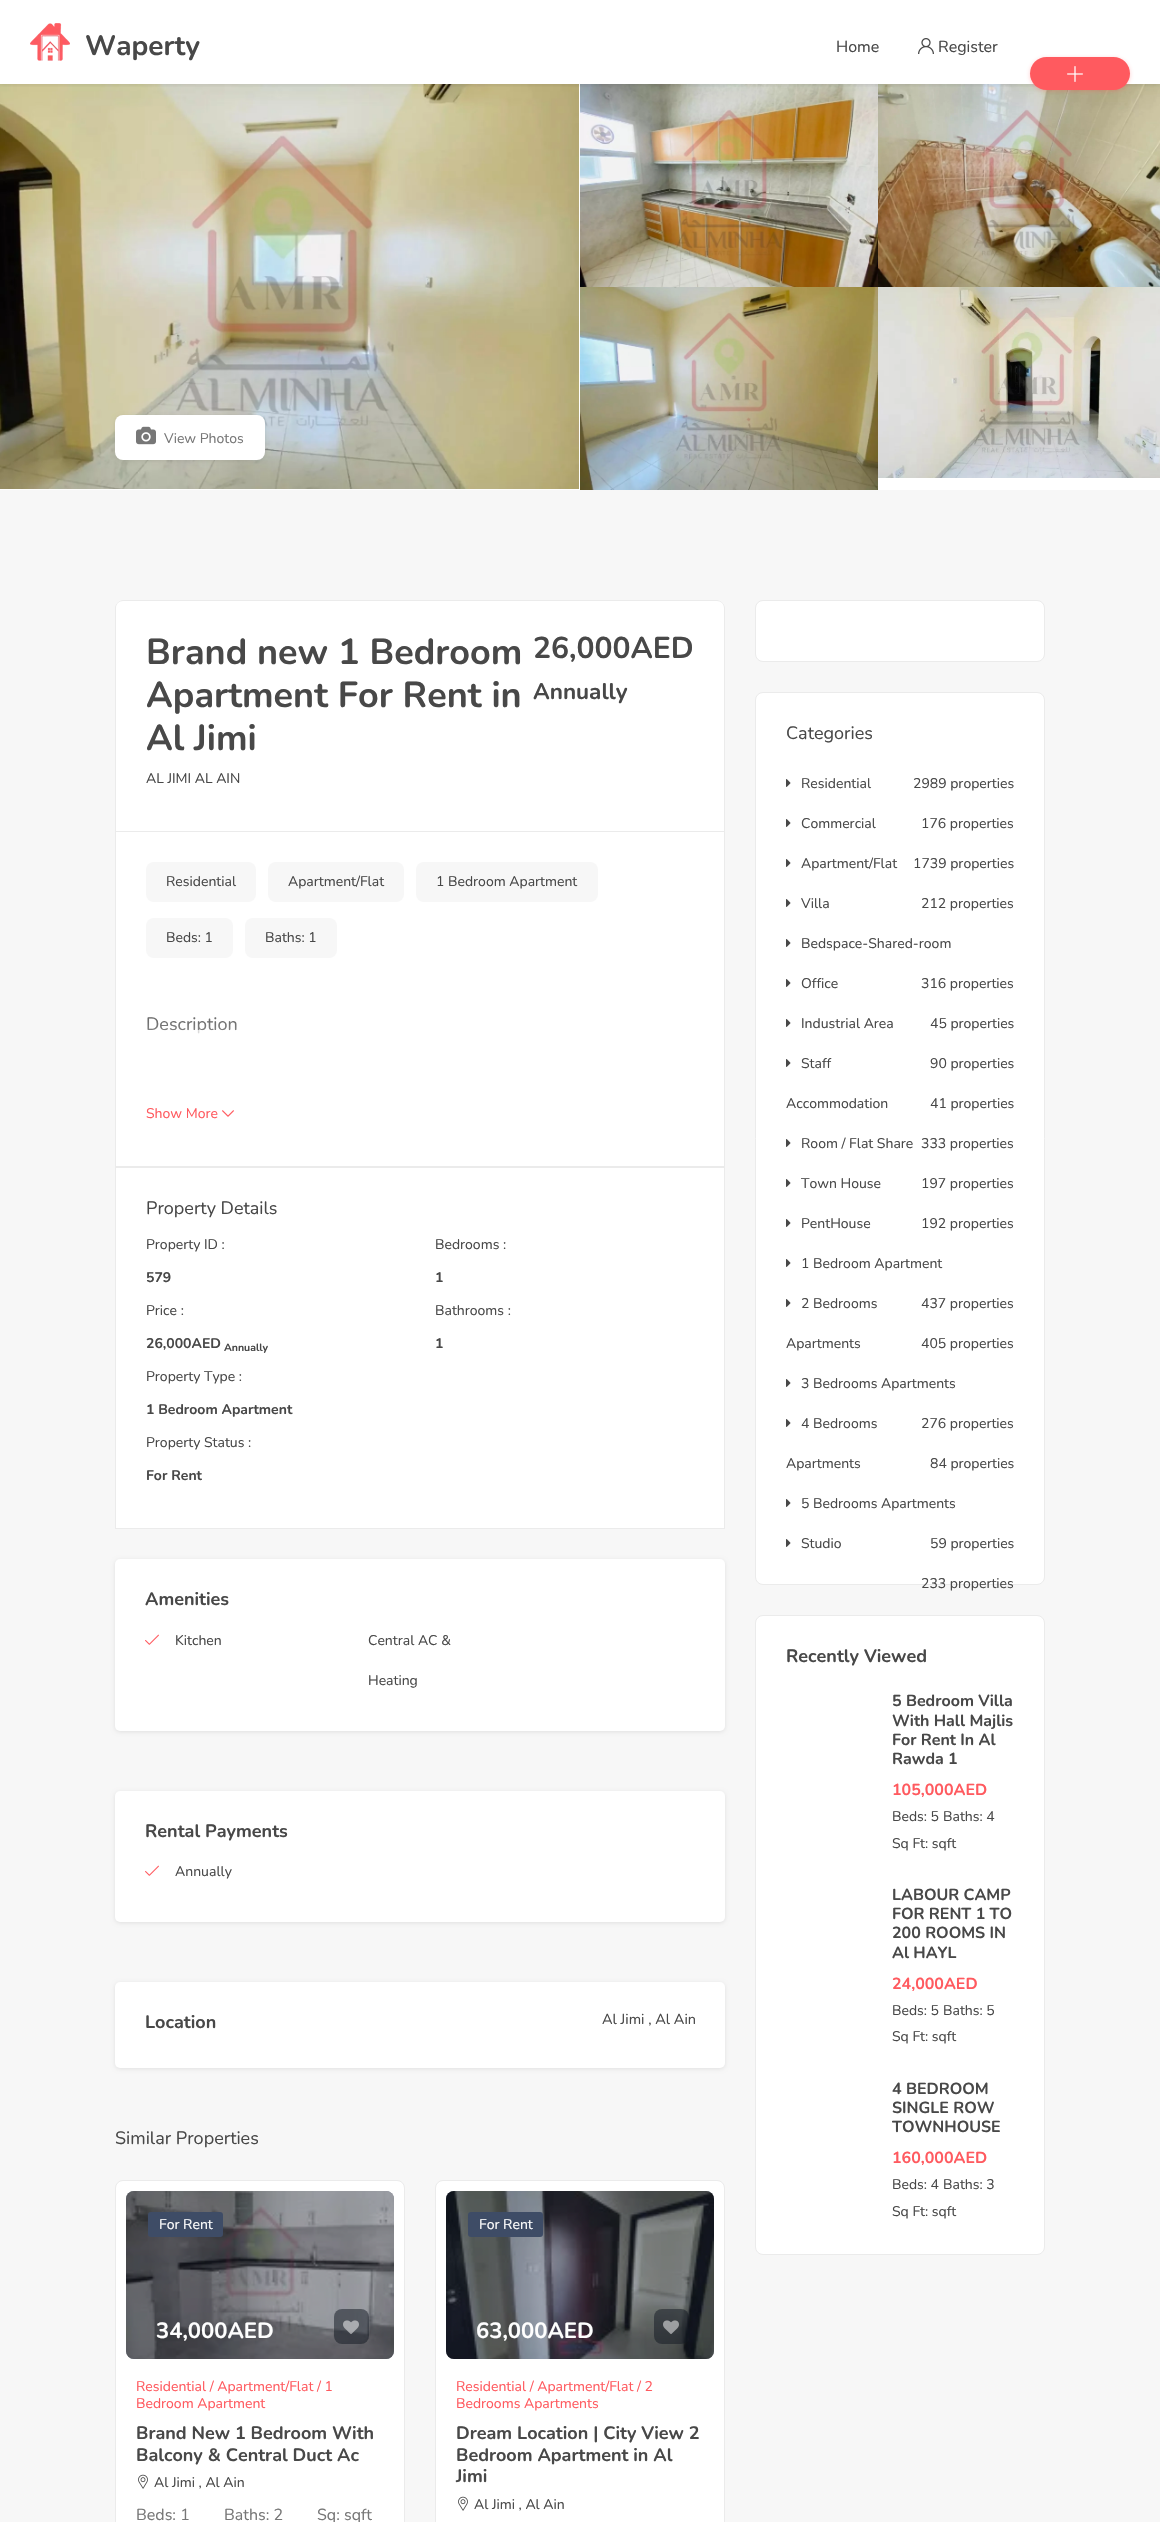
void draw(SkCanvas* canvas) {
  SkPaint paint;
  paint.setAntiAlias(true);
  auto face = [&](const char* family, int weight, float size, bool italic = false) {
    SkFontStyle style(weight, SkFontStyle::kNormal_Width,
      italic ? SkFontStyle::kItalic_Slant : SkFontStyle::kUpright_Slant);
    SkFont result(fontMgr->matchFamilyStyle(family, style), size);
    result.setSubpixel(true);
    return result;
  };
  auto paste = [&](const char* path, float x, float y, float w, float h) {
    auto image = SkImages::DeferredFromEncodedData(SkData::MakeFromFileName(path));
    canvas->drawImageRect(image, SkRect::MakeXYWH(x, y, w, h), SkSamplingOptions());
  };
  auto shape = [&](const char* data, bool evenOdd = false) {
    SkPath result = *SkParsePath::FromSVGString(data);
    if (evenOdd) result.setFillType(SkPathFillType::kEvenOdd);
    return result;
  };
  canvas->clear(0xffffffff);
  paste("img/4.png", 0, 84, 579, 405);
  paste("img/5.png", 580, 84, 298, 203);
  paste("img/6.png", 878, 84, 282, 203);
  canvas->save();
  canvas->clipRect(SkRect::MakeXYWH(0, 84, 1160, 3));
  paint.setColor(0x17000000);
  paint.setMaskFilter(SkMaskFilter::MakeBlur(kNormal_SkBlurStyle, 2));
  canvas->drawRect(SkRect::MakeXYWH(0, 1, 1160, 84), paint);
  paint.setMaskFilter(nullptr);
  canvas->restore();
  paste("img/1.png", 30, 23, 40, 38);
  paste("img/2.png", 918, 38, 16, 16);
  paint.setColor(0x4dff5a5f);
  paint.setMaskFilter(SkMaskFilter::MakeBlur(kNormal_SkBlurStyle, 2));
  canvas->drawRoundRect(SkRect::MakeXYWH(1030, 58, 100, 33), 16.5f, 16.5f, paint);
  paint.setMaskFilter(nullptr);
  paint.setColor(0xffff5a5f);
  canvas->drawRoundRect(SkRect::MakeXYWH(1030, 57, 100, 33), 16.5f, 16.5f, paint);
  paste("img/3.png", 1067, 66, 16, 16);
  paste("img/7.png", 580, 287, 298, 203);
  paste("img/8.png", 878, 287, 282, 191);
  paint.setColor(0x17000000);
  paint.setMaskFilter(SkMaskFilter::MakeBlur(kNormal_SkBlurStyle, 2));
  canvas->drawRoundRect(SkRect::MakeXYWH(115, 416, 150, 45), 8, 8, paint);
  paint.setMaskFilter(nullptr);
  paint.setColor(0xffffffff);
  canvas->drawRoundRect(SkRect::MakeXYWH(115, 415, 150, 45), 8, 8, paint);
  paste("img/9.png", 136, 426, 20, 19);
  paint.setColor(0xfff7f7f7);
  canvas->drawRect(SkRect::MakeXYWH(0, 490, 1160, 2032), paint);
  paint.setColor(0xffffffff);
  canvas->drawPath(shape("M123 600H717C721.5 600 725 603.5 725 608V831H115V608C115 603.5 118.5 600 123 600Z"), paint);
  paint.setColor(0xffebebeb);
  canvas->drawPath(shape("M123 600H717C721 600 725 604 725 608V831H115V608C115 604 119 600 123 600ZM123 601H717C721 601 724 604 724 608V831H116V608C116 604 119 601 123 601Z", true), paint);
  paint.setColor(0xffffffff);
  canvas->drawRect(SkRect::MakeXYWH(115.5f, 831.5f, 609, 335), paint);
  paint.setStroke(true);
  paint.setStrokeWidth(1);
  paint.setColor(0xffebebeb);
  canvas->drawRect(SkRect::MakeXYWH(115.5f, 831.5f, 609, 335), paint);
  paint.setStroke(false);
  paint.setColor(0xfff7f7f7);
  canvas->drawRoundRect(SkRect::MakeXYWH(146, 862, 110, 40), 8, 8, paint);
  canvas->drawRoundRect(SkRect::MakeXYWH(268, 862, 136, 40), 8, 8, paint);
  canvas->drawRoundRect(SkRect::MakeXYWH(416, 862, 182, 40), 8, 8, paint);
  canvas->drawRoundRect(SkRect::MakeXYWH(146, 918, 87, 40), 8, 8, paint);
  canvas->drawRoundRect(SkRect::MakeXYWH(245, 918, 92, 40), 8, 8, paint);
  paste("img/10.png", 222, 1110, 12, 7);
  paint.setColor(0xffffffff);
  canvas->drawRect(SkRect::MakeXYWH(115.5f, 1167.5f, 609, 361), paint);
  paint.setStroke(true);
  paint.setColor(0xffebebeb);
  canvas->drawRect(SkRect::MakeXYWH(115.5f, 1167.5f, 609, 361), paint);
  paint.setStroke(false);
  paint.setColor(0x17000000);
  paint.setMaskFilter(SkMaskFilter::MakeBlur(kNormal_SkBlurStyle, 2));
  canvas->drawRoundRect(SkRect::MakeXYWH(115, 1560, 610, 172), 5, 5, paint);
  paint.setMaskFilter(nullptr);
  paint.setColor(0xffffffff);
  canvas->drawRoundRect(SkRect::MakeXYWH(115, 1559, 610, 172), 5, 5, paint);
  paste("img/11.png", 145, 1634, 14, 11);
  paint.setColor(0x17000000);
  paint.setMaskFilter(SkMaskFilter::MakeBlur(kNormal_SkBlurStyle, 2));
  canvas->drawRoundRect(SkRect::MakeXYWH(115, 1792, 610, 131), 5, 5, paint);
  paint.setMaskFilter(nullptr);
  paint.setColor(0xffffffff);
  canvas->drawRoundRect(SkRect::MakeXYWH(115, 1791, 610, 131), 5, 5, paint);
  paste("img/11.png", 145, 1865, 14, 11);
  paint.setColor(0x17000000);
  paint.setMaskFilter(SkMaskFilter::MakeBlur(kNormal_SkBlurStyle, 2));
  canvas->drawRoundRect(SkRect::MakeXYWH(115, 1983, 610, 86), 5, 5, paint);
  paint.setMaskFilter(nullptr);
  paint.setColor(0xffffffff);
  canvas->drawRoundRect(SkRect::MakeXYWH(115, 1982, 610, 86), 5, 5, paint);
  canvas->drawRoundRect(SkRect::MakeXYWH(115.5f, 2180.5f, 289, 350), 7.5f, 7.5f, paint);
  paint.setStroke(true);
  paint.setColor(0xffebebeb);
  canvas->drawRoundRect(SkRect::MakeXYWH(115.5f, 2180.5f, 289, 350), 7.5f, 7.5f, paint);
  paint.setStroke(false);
  paint.setColor(0xff1d293e);
  canvas->drawRoundRect(SkRect::MakeXYWH(126, 2191, 268, 168), 8, 8, paint);
  paste("img/12.png", 126, 2191, 268, 168);
  paint.setColor(0xff3e4c66);
  canvas->drawRoundRect(SkRect::MakeXYWH(148, 2212, 75, 25), 3, 3, paint);
  paint.setColor(0x800f151f);
  canvas->drawRoundRect(SkRect::MakeXYWH(334, 2309, 35, 35), 8, 8, paint);
  paste("img/13.png", 343, 2320, 16, 14);
  paste("img/14.png", 138, 2474, 10, 15);
  paint.setColor(0xffffffff);
  canvas->drawRoundRect(SkRect::MakeXYWH(435.5f, 2180.5f, 289, 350), 7.5f, 7.5f, paint);
  paint.setStroke(true);
  paint.setColor(0xffebebeb);
  canvas->drawRoundRect(SkRect::MakeXYWH(435.5f, 2180.5f, 289, 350), 7.5f, 7.5f, paint);
  paint.setStroke(false);
  paint.setColor(0xff1d293e);
  canvas->drawRoundRect(SkRect::MakeXYWH(446, 2191, 268, 168), 8, 8, paint);
  paste("img/15.png", 446, 2191, 268, 168);
  paint.setColor(0xff3e4c66);
  canvas->drawRoundRect(SkRect::MakeXYWH(468, 2212, 75, 25), 3, 3, paint);
  paint.setColor(0x800f151f);
  canvas->drawRoundRect(SkRect::MakeXYWH(654, 2309, 35, 35), 8, 8, paint);
  paste("img/16.png", 663, 2320, 16, 14);
  paste("img/14.png", 458, 2496, 10, 15);
  paint.setColor(0xffffffff);
  canvas->drawRoundRect(SkRect::MakeXYWH(755.5f, 600.5f, 289, 61), 7.5f, 7.5f, paint);
  paint.setStroke(true);
  paint.setColor(0xffebebeb);
  canvas->drawRoundRect(SkRect::MakeXYWH(755.5f, 600.5f, 289, 61), 7.5f, 7.5f, paint);
  paint.setStroke(false);
  paint.setColor(0xffffffff);
  canvas->drawRoundRect(SkRect::MakeXYWH(755.5f, 692.5f, 289, 892), 7.5f, 7.5f, paint);
  paint.setStroke(true);
  paint.setColor(0xffebebeb);
  canvas->drawRoundRect(SkRect::MakeXYWH(755.5f, 692.5f, 289, 892), 7.5f, 7.5f, paint);
  paste("img/17.png", 786, 779, 5, 8);
  paste("img/17.png", 786, 819, 5, 8);
  paste("img/17.png", 786, 859, 5, 8);
  paste("img/17.png", 786, 899, 5, 8);
  paste("img/17.png", 786, 939, 5, 8);
  paste("img/17.png", 786, 979, 5, 8);
  paste("img/17.png", 786, 1019, 5, 8);
  paste("img/17.png", 786, 1059, 5, 8);
  paste("img/17.png", 786, 1139, 5, 8);
  paste("img/17.png", 786, 1179, 5, 8);
  paste("img/17.png", 786, 1219, 5, 8);
  paste("img/17.png", 786, 1259, 5, 8);
  paste("img/17.png", 786, 1299, 5, 8);
  paste("img/17.png", 786, 1379, 5, 8);
  paste("img/17.png", 786, 1419, 5, 8);
  paste("img/17.png", 786, 1499, 5, 8);
  paste("img/17.png", 786, 1539, 5, 8);
  paint.setStroke(false);
  paint.setColor(0xffffffff);
  canvas->drawRoundRect(SkRect::MakeXYWH(755.5f, 1615.5f, 289, 639), 7.5f, 7.5f, paint);
  paint.setStroke(true);
  paint.setColor(0xffebebeb);
  canvas->drawRoundRect(SkRect::MakeXYWH(755.5f, 1615.5f, 289, 639), 7.5f, 7.5f, paint);
  auto f0 = face("Nunito", 700, 28);
  paint.setStroke(false);
  paint.setColor(0xff484848);
  canvas->drawString("Waperty", 85, 55, f0, paint);
  auto f1 = face("Nunito", 400, 16);
  canvas->drawString("Home", 836, 52, f1, paint);
  canvas->drawString("Register", 938, 52, f1, paint);
  auto f2 = face("Nunito", 400, 14);
  paint.setColor(0xff777777);
  canvas->drawString("View Photos", 164, 443, f2, paint);
  auto f3 = face("Nunito", 700, 36);
  paint.setColor(0xff484848);
  {
    const struct { const char* s; float x, y; } items[] = {
      {"Brand new 1 Bedroom", 146, 664},
      {"Apartment For Rent in", 146, 707},
      {"Al Jimi", 146, 750},
    };
    for (auto [s, x, y] : items) {
      canvas->drawString(s, x, y, f3, paint);
    }
  }
  canvas->drawString("AL JIMI AL AIN", 146, 783, f2, paint);
  auto f4 = face("Nunito", 700, 30);
  canvas->drawString("26,000AED", 533, 658, f4, paint);
  auto f5 = face("Nunito", 700, 22.5f);
  canvas->drawString("Annually", 533, 699, f5, paint);
  {
    const struct { const char* s; float x, y; } items[] = {
      {"Residential", 166, 886},
      {"Apartment/Flat", 288, 886},
      {"1 Bedroom Apartment", 436, 886},
      {"Beds: 1", 166, 942},
      {"Baths: 1", 265, 942},
    };
    for (auto [s, x, y] : items) {
      canvas->drawString(s, x, y, f2, paint);
    }
  }
  auto f6 = face("Nunito", 400, 18);
  canvas->drawString("Description", 146, 1030, f6, paint);
  {
    const SkColor colors[] = {0x33ffffff, 0x4dffffff, 0xccffffff};
    const float stops[] = {0.2f, 0.3f, 0.3f};
    const SkPoint ends[] = {{420, 1003}, {420, 1093}};
    paint.setShader(SkGradientShader::MakeLinear(ends, colors, stops, 3, SkTileMode::kClamp));
    paint.setAlpha(255);
  }
  canvas->drawRect(SkRect::MakeXYWH(147, 1017, 90, 17), paint);
  paint.setShader(nullptr);
  paint.setColor(0xffff5a5f);
  canvas->drawString("Show More", 146, 1118, f2, paint);
  paint.setColor(0xff484848);
  canvas->drawString("Property Details", 146, 1214, f6, paint);
  canvas->drawString("Property ID :", 146, 1249, f2, paint);
  auto f7 = face("Nunito", 700, 14);
  canvas->drawString("579", 146, 1282, f7, paint);
  canvas->drawString("Price :", 146, 1315, f2, paint);
  canvas->drawString("26,000AED", 146, 1348, f7, paint);
  auto f8 = face("Nunito", 700, 10.5f);
  canvas->drawString("Annually", 224, 1351, f8, paint);
  canvas->drawString("Bedrooms :", 435, 1249, f2, paint);
  canvas->drawString("1", 435, 1282, f7, paint);
  canvas->drawString("Bathrooms :", 435, 1315, f2, paint);
  canvas->drawString("1", 435, 1348, f7, paint);
  canvas->drawString("Property Type :", 146, 1381, f2, paint);
  canvas->drawString("1 Bedroom Apartment", 146, 1414, f7, paint);
  canvas->drawString("Property Status :", 146, 1447, f2, paint);
  canvas->drawString("For Rent", 146, 1480, f7, paint);
  auto f9 = face("Nunito", 700, 18);
  canvas->drawString("Amenities", 145, 1605, f9, paint);
  {
    const struct { const char* s; float x, y; } items[] = {
      {"Kitchen", 175, 1645},
      {"Central AC &", 368, 1645},
      {"Heating", 368, 1685},
    };
    for (auto [s, x, y] : items) {
      canvas->drawString(s, x, y, f2, paint);
    }
  }
  canvas->drawString("Rental Payments", 145, 1837, f9, paint);
  canvas->drawString("Annually", 175, 1876, f2, paint);
  canvas->drawString("Location", 145, 2028, f9, paint);
  auto f10 = face("Nunito", 400, 14.5f);
  canvas->drawString("Al Jimi , Al Ain", 602, 2024, f10, paint);
  canvas->drawString("Similar Properties", 115, 2144, f6, paint);
  paint.setColor(0xfffefefe);
  canvas->drawString("For Rent", 159, 2229, f2, paint);
  auto f11 = face("Nunito", 700, 22);
  canvas->drawString("34,000AED", 156, 2338, f11, paint);
  paint.setColor(0xffff5a5f);
  canvas->drawString("Residential / Apartment/Flat / 1", 136, 2391, f2, paint);
  canvas->drawString("Bedroom Apartment", 136, 2408, f2, paint);
  paint.setColor(0xff484848);
  canvas->drawString("Brand New 1 Bedroom With", 136, 2439, f9, paint);
  canvas->drawString("Balcony & Central Duct Ac", 136, 2461, f9, paint);
  canvas->drawString("Al Jimi , Al Ain", 154, 2487, f2, paint);
  paint.setColor(0xff777777);
  {
    const struct { const char* s; float x, y; } items[] = {
      {"Beds: 1", 136, 2520},
      {"Baths: 2", 224, 2520},
      {"Sq: sqft", 317, 2520},
    };
    for (auto [s, x, y] : items) {
      canvas->drawString(s, x, y, f1, paint);
    }
  }
  paint.setColor(0xfffefefe);
  canvas->drawString("For Rent", 479, 2229, f2, paint);
  canvas->drawString("63,000AED", 476, 2338, f11, paint);
  paint.setColor(0xffff5a5f);
  canvas->drawString("Residential / Apartment/Flat / 2", 456, 2391, f2, paint);
  canvas->drawString("Bedrooms Apartments", 456, 2408, f2, paint);
  paint.setColor(0xff484848);
  {
    const struct { const char* s; float x, y; } items[] = {
      {"Dream Location | City View 2", 456, 2439},
      {"Bedroom Apartment in Al", 456, 2461},
      {"Jimi", 456, 2482},
    };
    for (auto [s, x, y] : items) {
      canvas->drawString(s, x, y, f9, paint);
    }
  }
  canvas->drawString("Al Jimi , Al Ain", 474, 2509, f2, paint);
  canvas->drawString("Categories", 786, 739, f6, paint);
  {
    const struct { const char* s; float x, y; } items[] = {
      {"Residential", 801, 788},
      {"2989 properties", 913, 788},
      {"Commercial", 801, 828},
      {"176 properties", 921, 828},
      {"Apartment/Flat", 801, 868},
      {"1739 properties", 913, 868},
      {"Villa", 801, 908},
      {"212 properties", 921, 908},
      {"Bedspace-Shared-room", 801, 948},
      {"316 properties", 921, 988},
      {"Office", 801, 988},
      {"45 properties", 930, 1028},
      {"Industrial Area", 801, 1028},
      {"90 properties", 930, 1068},
      {"Staff", 801, 1068},
      {"Accommodation", 786, 1108},
      {"41 properties", 930, 1108},
      {"Room / Flat Share", 801, 1148},
      {"333 properties", 921, 1148},
      {"Town House", 801, 1188},
      {"197 properties", 921, 1188},
      {"PentHouse", 801, 1228},
      {"192 properties", 921, 1228},
      {"1 Bedroom Apartment", 801, 1268},
      {"437 properties", 921, 1308},
      {"2 Bedrooms", 801, 1308},
      {"Apartments", 786, 1348},
      {"405 properties", 921, 1348},
      {"3 Bedrooms Apartments", 801, 1388},
      {"276 properties", 921, 1428},
      {"4 Bedrooms", 801, 1428},
      {"Apartments", 786, 1468},
      {"84 properties", 930, 1468},
      {"5 Bedrooms Apartments", 801, 1508},
      {"59 properties", 930, 1548},
      {"Studio", 801, 1548},
      {"233 properties", 921, 1588},
    };
    for (auto [s, x, y] : items) {
      canvas->drawString(s, x, y, f2, paint);
    }
  }
  canvas->drawString("Recently Viewed", 786, 1662, f9, paint);
  auto f12 = face("Nunito", 700, 16);
  {
    const struct { const char* s; float x, y; } items[] = {
      {"5 Bedroom Villa", 892, 1706},
      {"With Hall Majlis", 892, 1726},
      {"For Rent In Al", 892, 1745},
      {"Rawda 1", 892, 1764},
    };
    for (auto [s, x, y] : items) {
      canvas->drawString(s, x, y, f12, paint);
    }
  }
  paint.setColor(0xffff5a5f);
  canvas->drawString("105,000AED", 892, 1795, f12, paint);
  paint.setColor(0xff484848);
  {
    const struct { const char* s; float x, y; } items[] = {
      {"Beds: 5", 892, 1821},
      {"Baths: 4", 943, 1821},
      {"Sq Ft: sqft", 892, 1848},
    };
    for (auto [s, x, y] : items) {
      canvas->drawString(s, x, y, f2, paint);
    }
  }
  {
    const struct { const char* s; float x, y; } items[] = {
      {"LABOUR CAMP", 892, 1900},
      {"FOR RENT 1 TO", 892, 1919},
      {"200 ROOMS IN", 892, 1938},
      {"Al HAYL", 892, 1958},
    };
    for (auto [s, x, y] : items) {
      canvas->drawString(s, x, y, f12, paint);
    }
  }
  paint.setColor(0xffff5a5f);
  canvas->drawString("24,000AED", 892, 1989, f12, paint);
  paint.setColor(0xff484848);
  {
    const struct { const char* s; float x, y; } items[] = {
      {"Beds: 5", 892, 2015},
      {"Baths: 5", 943, 2015},
      {"Sq Ft: sqft", 892, 2041},
    };
    for (auto [s, x, y] : items) {
      canvas->drawString(s, x, y, f2, paint);
    }
  }
  {
    const struct { const char* s; float x, y; } items[] = {
      {"4 BEDROOM", 892, 2094},
      {"SINGLE ROW", 892, 2113},
      {"TOWNHOUSE", 892, 2132},
    };
    for (auto [s, x, y] : items) {
      canvas->drawString(s, x, y, f12, paint);
    }
  }
  paint.setColor(0xffff5a5f);
  canvas->drawString("160,000AED", 892, 2163, f12, paint);
  paint.setColor(0xff484848);
  {
    const struct { const char* s; float x, y; } items[] = {
      {"Beds: 4", 892, 2189},
      {"Baths: 3", 943, 2189},
      {"Sq Ft: sqft", 892, 2216},
    };
    for (auto [s, x, y] : items) {
      canvas->drawString(s, x, y, f2, paint);
    }
  }
}
